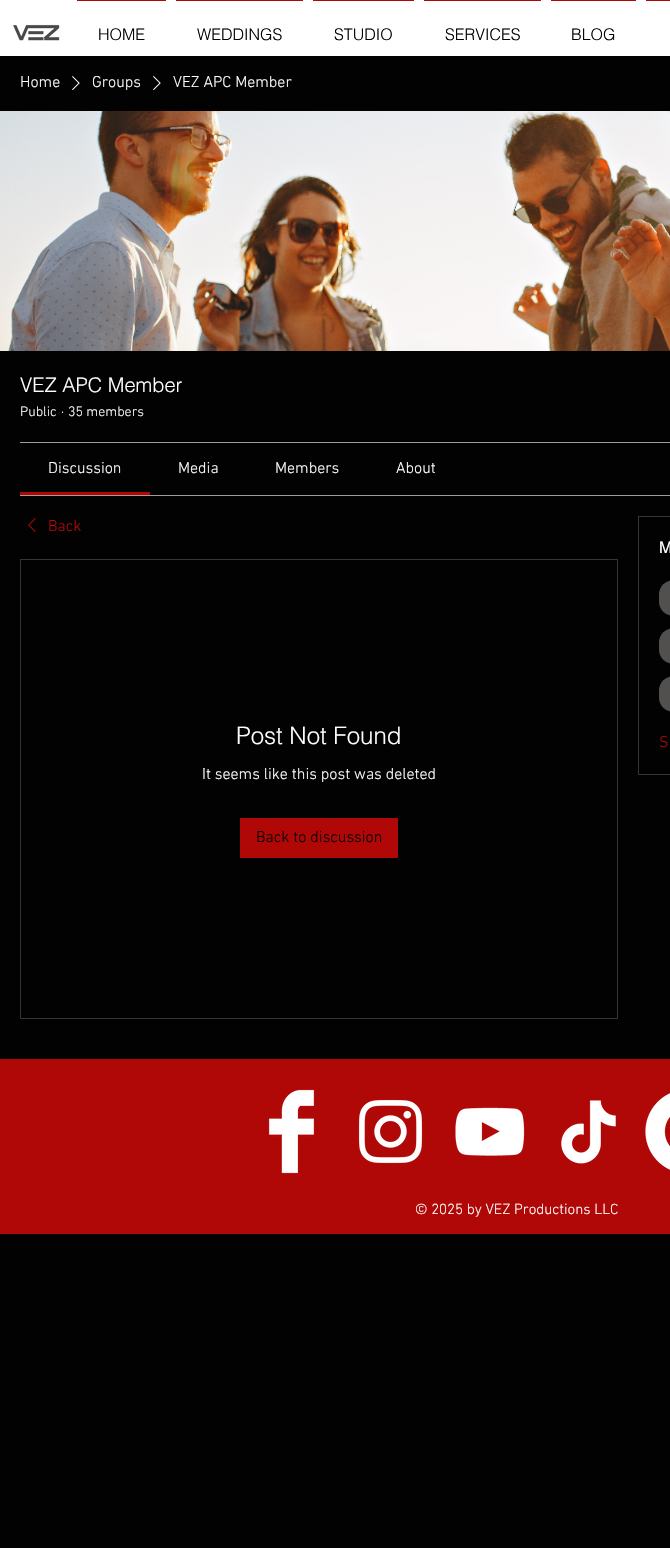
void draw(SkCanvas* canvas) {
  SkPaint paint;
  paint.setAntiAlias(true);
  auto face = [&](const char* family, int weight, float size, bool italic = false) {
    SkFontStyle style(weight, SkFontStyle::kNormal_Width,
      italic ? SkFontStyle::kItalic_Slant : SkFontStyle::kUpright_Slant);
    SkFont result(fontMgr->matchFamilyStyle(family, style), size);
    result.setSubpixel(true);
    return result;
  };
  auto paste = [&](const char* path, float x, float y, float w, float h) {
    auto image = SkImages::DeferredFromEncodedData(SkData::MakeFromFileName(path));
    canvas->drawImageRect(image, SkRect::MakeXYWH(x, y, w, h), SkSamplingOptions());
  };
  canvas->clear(0xff020202);
  paint.setColor(0xffffffff);
  canvas->drawRect(SkRect::MakeXYWH(0, 0, 670, 56), paint);
  paste("img/1.png", 13, 24, 47, 17);
  {
    const struct { float x, y, w, h; SkColor color; } items[] = {
      {646, 0, 24, 1, 0xffb00707},
      {77, 0, 89, 1, 0xffb00707},
      {176, 0, 127, 1, 0xffb00707},
      {313, 0, 101, 1, 0xffb00707},
      {424, 0, 117, 1, 0xffb00707},
      {551, 0, 85, 1, 0xffb00707},
    };
    for (auto [x, y, w, h, color] : items) {
      paint.setColor(color);
      canvas->drawRect(SkRect::MakeXYWH(x, y, w, h), paint);
    }
  }
  paste("img/2.png", 72, 76, 8, 14);
  paste("img/2.png", 153, 76, 8, 14);
  paste("img/3.png", 0, 111, 670, 240);
  {
    const struct { float x, y, w, h; SkColor color; } items[] = {
      {20, 442, 650, 1, 0xffa29c9c},
      {20, 495, 650, 1, 0xffa29c9c},
      {20, 492, 130, 3, 0xffb00707},
    };
    for (auto [x, y, w, h, color] : items) {
      paint.setColor(color);
      canvas->drawRect(SkRect::MakeXYWH(x, y, w, h), paint);
    }
  }
  paste("img/4.png", 28, 518, 8, 14);
  paint.setStroke(true);
  paint.setStrokeWidth(1);
  paint.setColor(0xff353535);
  canvas->drawRect(SkRect::MakeXYWH(20.5f, 559.5f, 597, 459), paint);
  paint.setStroke(false);
  paint.setColor(0xffb00707);
  canvas->drawRect(SkRect::MakeXYWH(240, 818, 158, 40), paint);
  paint.setStroke(true);
  paint.setColor(0xff353535);
  canvas->drawRect(SkRect::MakeXYWH(638.5f, 516.5f, 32, 258), paint);
  paint.setStroke(false);
  paint.setColor(0xff524f4f);
  canvas->drawRoundRect(SkRect::MakeXYWH(659, 580, 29, 36), 18, 18, paint);
  canvas->drawRoundRect(SkRect::MakeXYWH(659, 628, 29, 36), 18, 18, paint);
  canvas->drawRoundRect(SkRect::MakeXYWH(659, 676, 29, 36), 18, 18, paint);
  paint.setColor(0xffb00707);
  canvas->drawRect(SkRect::MakeXYWH(0, 1059, 670, 175), paint);
  paste("img/5.png", 268, 1089, 47, 85);
  paste("img/6.png", 358, 1099, 65, 65);
  paste("img/7.png", 455, 1107, 70, 49);
  paste("img/8.png", 561, 1100, 55, 64);
  paste("img/9.png", 645, 1093, 25, 77);
  auto f0 = face("helvetica", 300, 16);
  paint.setColor(0xff020202);
  {
    const struct { const char* s; float x, y; } items[] = {
      {"HOME", 98, 40},
      {"WEDDINGS", 197, 40},
      {"STUDIO", 334, 40},
      {"SERVICES", 445, 40},
      {"BLOG", 571, 40},
    };
    for (auto [s, x, y] : items) {
      canvas->drawString(s, x, y, f0, paint);
    }
  }
  auto f1 = face("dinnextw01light", 300, 16);
  paint.setColor(0xffffffff);
  {
    const struct { const char* s; float x, y; } items[] = {
      {"Home", 20, 87},
      {"Groups", 92, 87},
      {"VEZ APC Member", 173, 87},
    };
    for (auto [s, x, y] : items) {
      canvas->drawString(s, x, y, f1, paint);
    }
  }
  auto f2 = face("helvetica", 300, 20);
  canvas->drawString("VEZ APC Member", 20, 392, f2, paint);
  auto f3 = face("dinnextw01light", 300, 14);
  {
    const struct { const char* s; float x, y; } items[] = {
      {"Public", 20, 416},
      {"·", 61, 416},
      {"35 members", 68, 416},
    };
    for (auto [s, x, y] : items) {
      canvas->drawString(s, x, y, f3, paint);
    }
  }
  {
    const struct { const char* s; float x, y; } items[] = {
      {"Discussion", 48, 473},
      {"Media", 178, 473},
      {"Members", 275, 473},
      {"About", 396, 473},
    };
    for (auto [s, x, y] : items) {
      canvas->drawString(s, x, y, f1, paint);
    }
  }
  paint.setColor(0xffb00707);
  canvas->drawString("Back", 48, 531, f1, paint);
  auto f4 = face("helvetica", 300, 24);
  paint.setColor(0xffffffff);
  canvas->drawString("Post Not Found", 236, 744, f4, paint);
  canvas->drawString("It seems like this post was deleted", 202, 779, f1, paint);
  paint.setColor(0xff020202);
  canvas->drawString("Back to discussion", 256, 842, f1, paint);
  auto f5 = face("helvetica", 400, 16);
  paint.setColor(0xffffffff);
  canvas->drawString("M", 659, 553, f5, paint);
  paint.setColor(0xffb00707);
  canvas->drawString("S", 659, 747, f1, paint);
  auto f6 = face("dinnextw01light", 300, 15);
  paint.setColor(0xffffffff);
  canvas->drawString("© 2025 by VEZ Productions LLC", 415, 1214, f6, paint);
}
